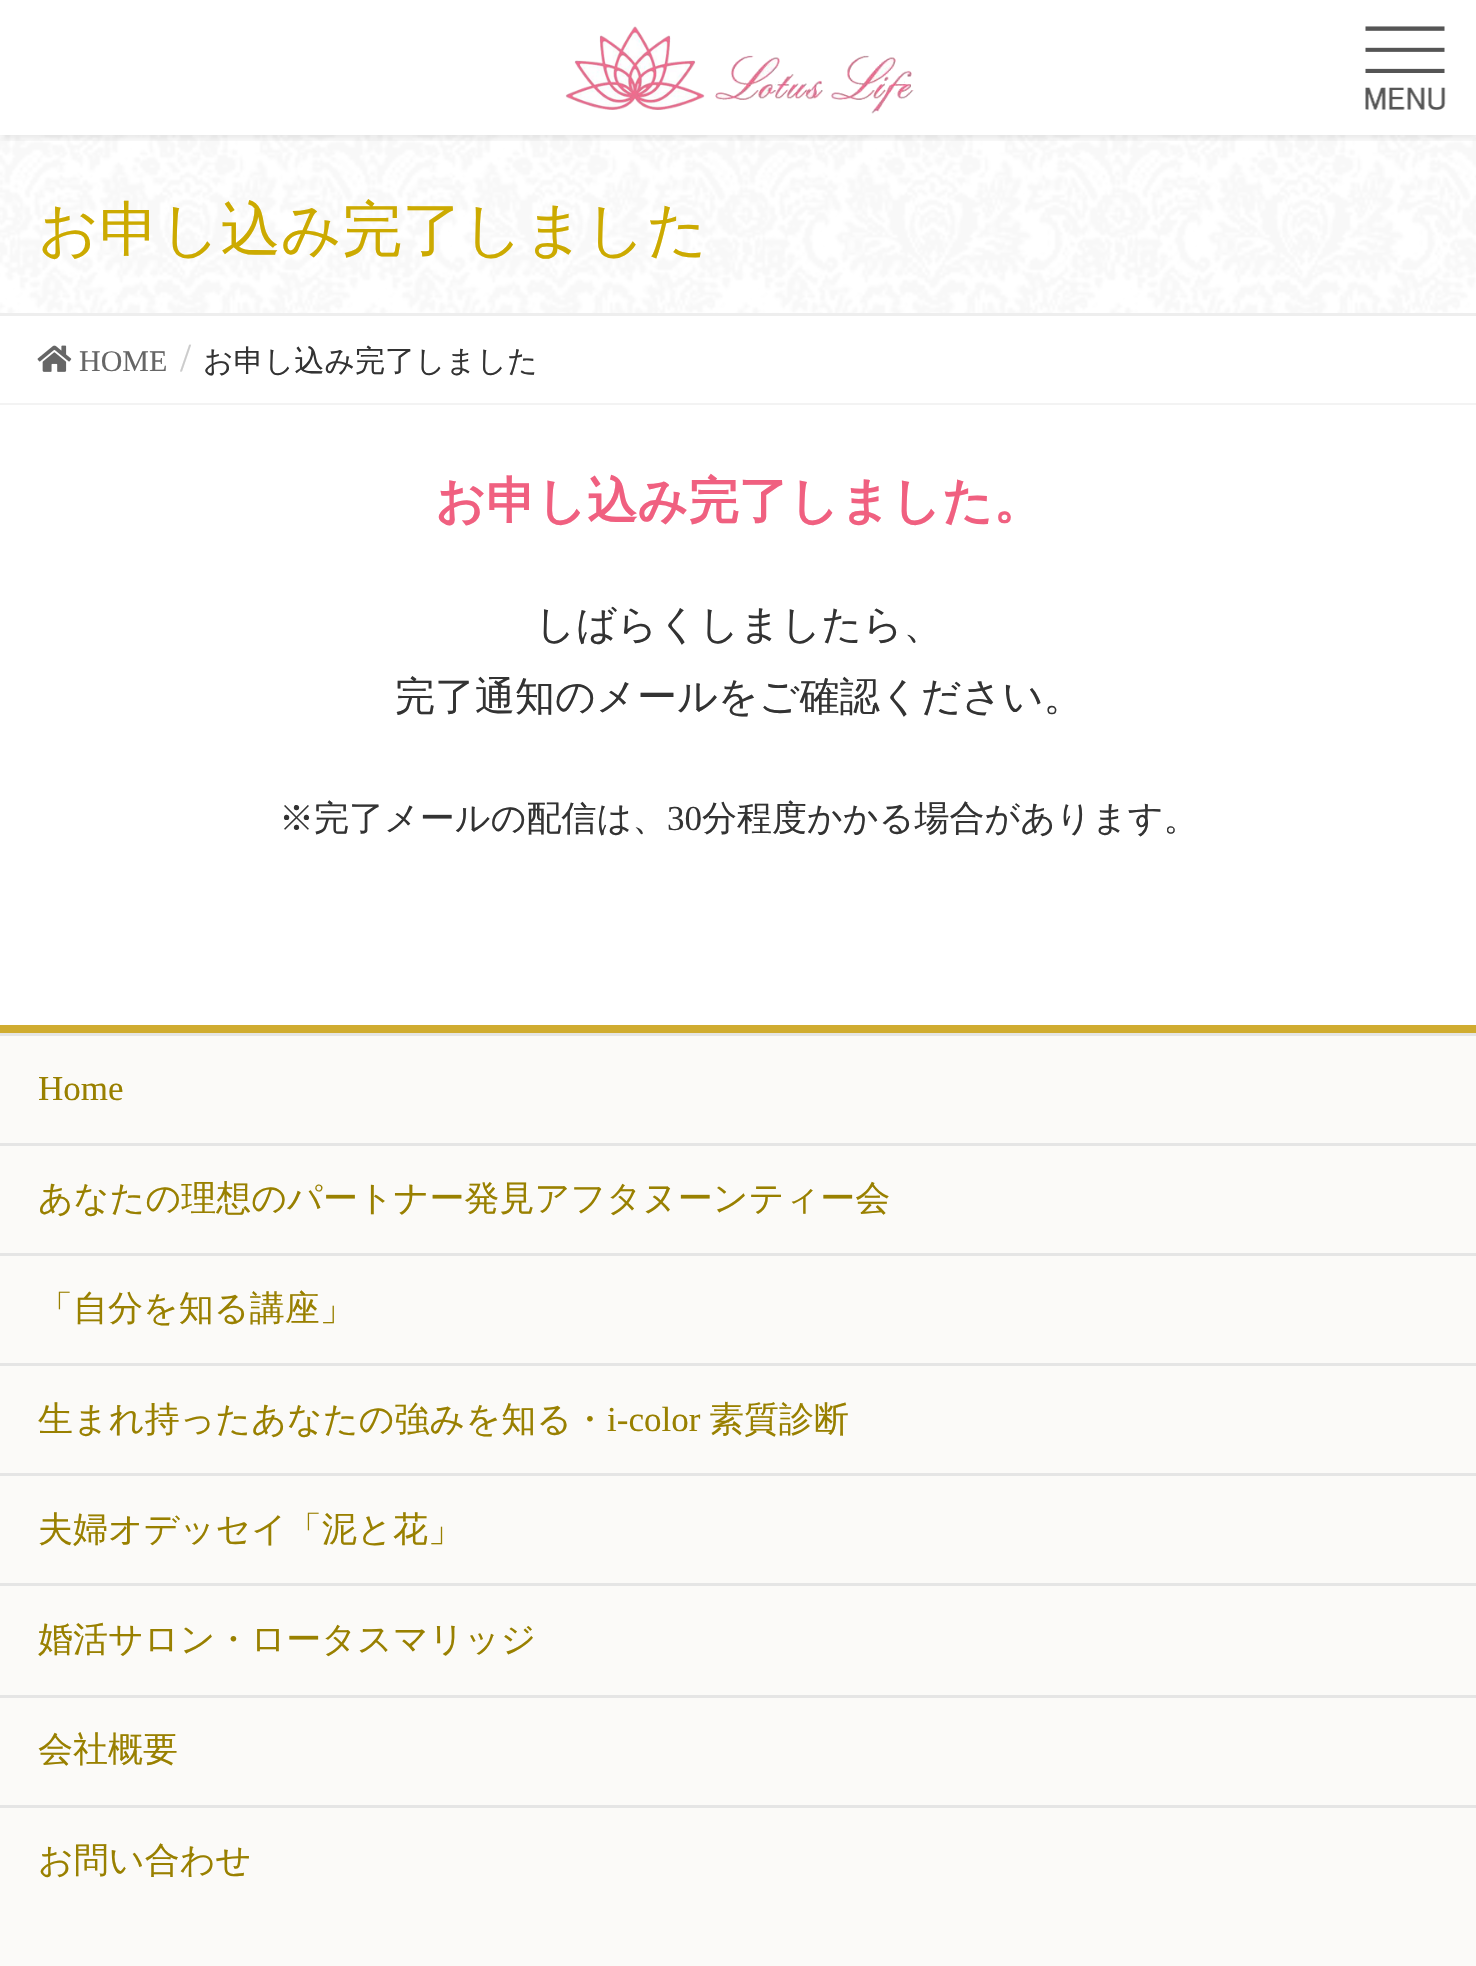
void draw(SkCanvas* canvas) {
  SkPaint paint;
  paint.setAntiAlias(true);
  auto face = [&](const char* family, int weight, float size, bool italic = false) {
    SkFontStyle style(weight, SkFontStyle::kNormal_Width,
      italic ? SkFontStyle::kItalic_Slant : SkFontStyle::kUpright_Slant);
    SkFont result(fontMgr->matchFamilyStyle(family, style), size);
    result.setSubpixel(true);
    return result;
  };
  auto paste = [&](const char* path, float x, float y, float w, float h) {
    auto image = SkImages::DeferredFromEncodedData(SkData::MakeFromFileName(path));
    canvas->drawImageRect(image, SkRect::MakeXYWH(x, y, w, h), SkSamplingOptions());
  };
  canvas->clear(0xffffffff);
  paste("img/3.png", 0, 135, 1476, 178);
  canvas->save();
  canvas->clipRect(SkRect::MakeXYWH(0, 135, 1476, 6));
  paint.setColor(0x1a000000);
  paint.setMaskFilter(SkMaskFilter::MakeBlur(kNormal_SkBlurStyle, 4));
  canvas->drawRect(SkRect::MakeXYWH(0, 3, 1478, 135), paint);
  paint.setMaskFilter(nullptr);
  canvas->restore();
  paste("img/1.png", 565, 26, 349, 88);
  paste("img/2.png", 1365, 26, 81, 84);
  paint.setColor(0xffeeeeee);
  canvas->drawRect(SkRect::MakeXYWH(0, 313, 1476, 3), paint);
  paint.setColor(0xfff3f3f3);
  canvas->drawRect(SkRect::MakeXYWH(0, 403, 1476, 2), paint);
  paste("img/4.png", 37, 345, 35, 27);
  {
    const struct { float x, y, w, h; SkColor color; } items[] = {
      {0, 1036, 1476, 930, 0xfffbfaf8},
      {0, 1025, 1476, 8, 0xffd0ac30},
      {0, 1033, 1476, 3, 0xffe5e5e5},
      {0, 1143, 1476, 3, 0xffe5e5e5},
      {0, 1253, 1476, 3, 0xffe5e5e5},
      {0, 1363, 1476, 3, 0xffe5e5e5},
      {0, 1473, 1476, 3, 0xffe5e5e5},
      {0, 1583, 1476, 3, 0xffe5e5e5},
      {0, 1695, 1476, 3, 0xffe5e5e5},
      {0, 1805, 1476, 3, 0xffe5e5e5},
    };
    for (auto [x, y, w, h, color] : items) {
      paint.setColor(color);
      canvas->drawRect(SkRect::MakeXYWH(x, y, w, h), paint);
    }
  }
  auto f0 = face("WenQuanYi Zen Hei", 500, 60);
  paint.setColor(0xffccaa00);
  canvas->drawString("お申し込み完了しました", 38, 250, f0, paint);
  auto f1 = face("Liberation Serif", 400, 30);
  paint.setColor(0xff666666);
  canvas->drawString("HOME", 79, 371, f1, paint);
  auto f2 = face("Liberation Serif", 400, 40);
  paint.setColor(0xffcccccc);
  canvas->drawString("/", 180, 371, f2, paint);
  auto f3 = face("WenQuanYi Zen Hei", 500, 30);
  paint.setColor(0xff333333);
  canvas->drawString("お申し込み完了しました", 203, 371, f3, paint);
  auto f4 = face("WenQuanYi Zen Hei", 700, 50);
  paint.setColor(0xfff06080);
  canvas->drawString("お申し込み完了しました。", 435, 518, f4, paint);
  auto f5 = face("WenQuanYi Zen Hei", 500, 40);
  paint.setColor(0xff333333);
  canvas->drawString("しばらくしましたら、", 535, 638, f5, paint);
  canvas->drawString("完了通知のメールをご確認ください。", 395, 710, f5, paint);
  auto f6 = face("WenQuanYi Zen Hei", 500, 35);
  canvas->drawString("※完了メールの配信は、", 279, 830, f6, paint);
  auto f7 = face("Liberation Serif", 400, 35);
  canvas->drawString("30", 667, 830, f7, paint);
  canvas->drawString("分程度かかる場合があります。", 702, 830, f6, paint);
  paint.setColor(0xff998000);
  canvas->drawString("Home", 38, 1100, f7, paint);
  {
    const struct { const char* s; float x, y; } items[] = {
      {"あなたの理想のパートナー発見アフタヌーンティー会", 38, 1210},
      {"「自分を知る講座」", 38, 1320},
      {"生まれ持ったあなたの強みを知る・", 38, 1431},
    };
    for (auto [s, x, y] : items) {
      canvas->drawString(s, x, y, f6, paint);
    }
  }
  canvas->drawString("i-color", 607, 1431, f7, paint);
  {
    const struct { const char* s; float x, y; } items[] = {
      {"素質診断", 709, 1431},
      {"夫婦オデッセイ「泥と花」", 38, 1541},
      {"婚活サロン・ロータスマリッジ", 38, 1651},
      {"会社概要", 38, 1761},
      {"お問い合わせ", 38, 1872},
    };
    for (auto [s, x, y] : items) {
      canvas->drawString(s, x, y, f6, paint);
    }
  }
}
